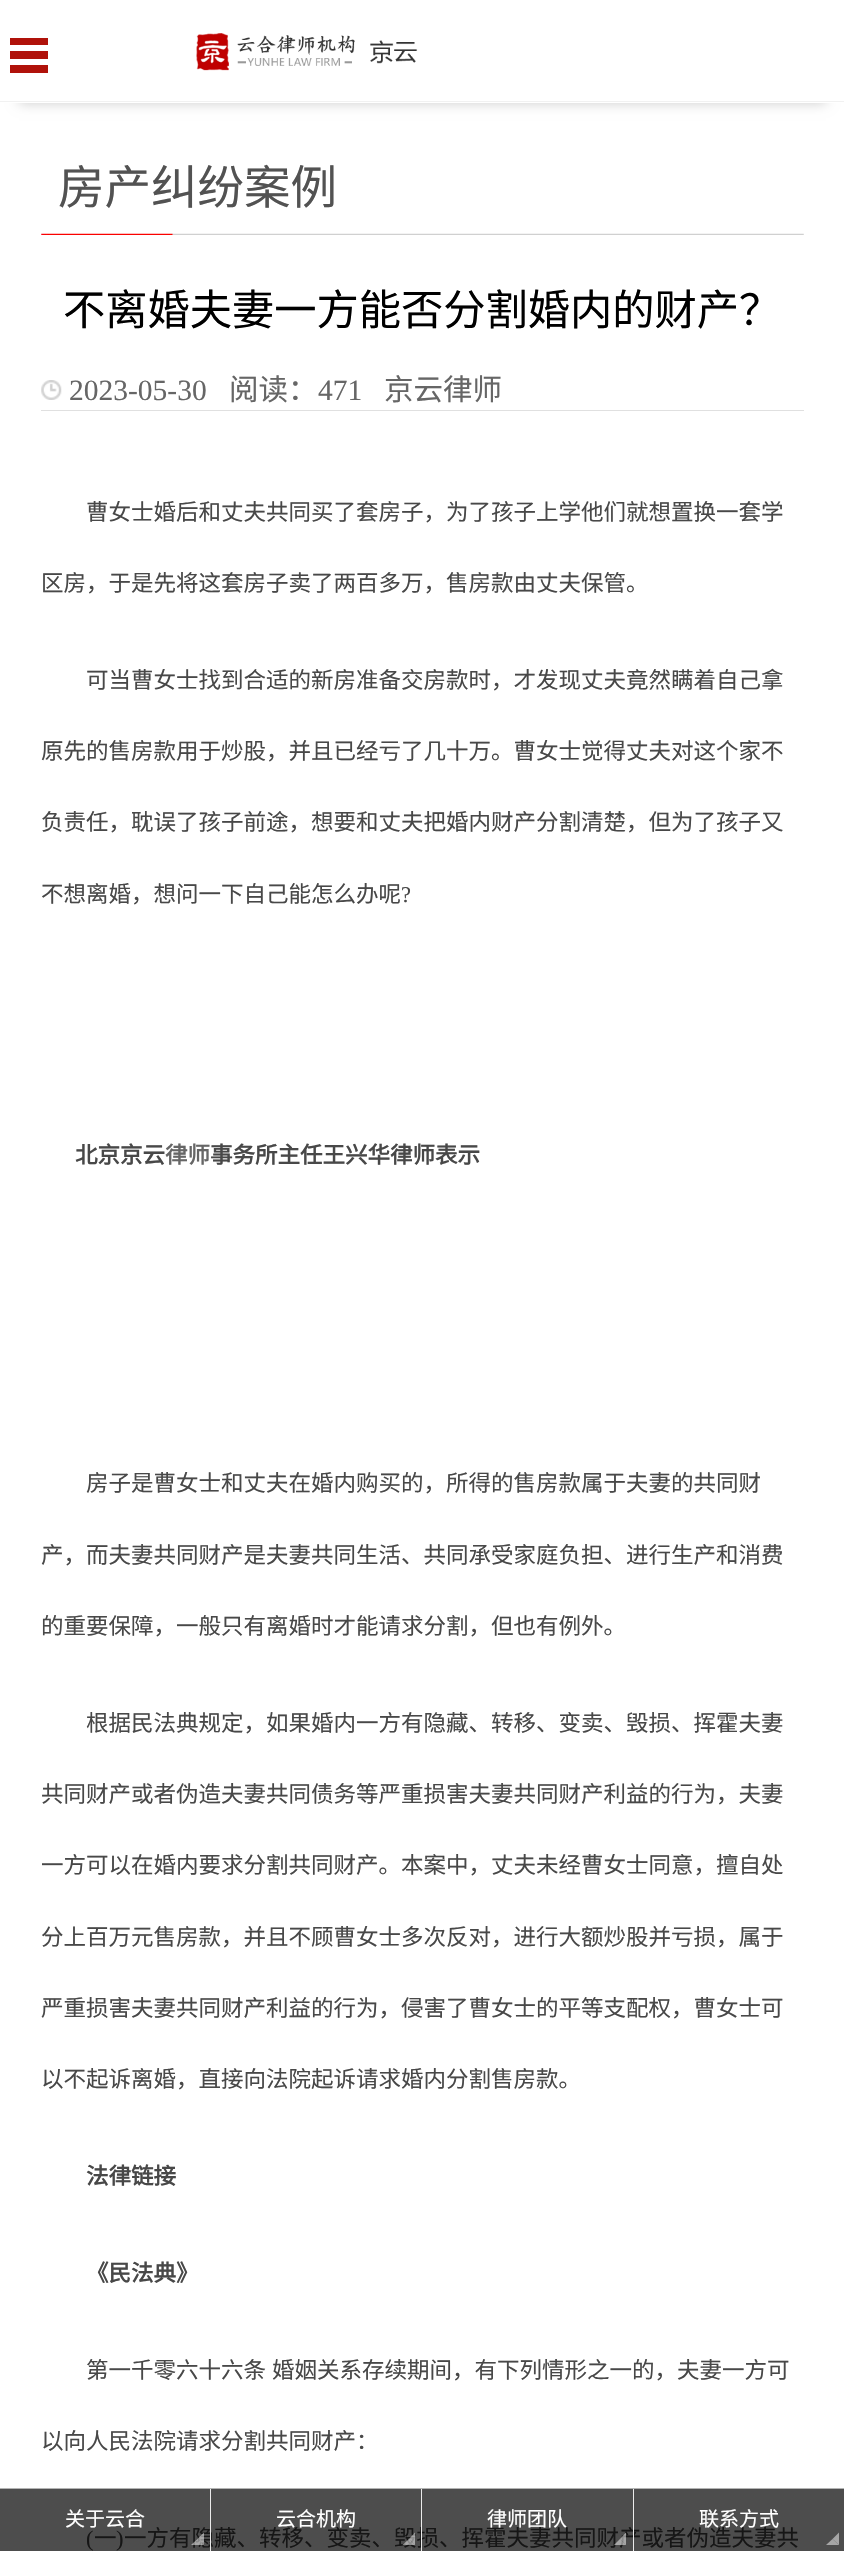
void draw(SkCanvas* canvas) {
  SkPaint paint;
  paint.setAntiAlias(true);
  auto face = [&](const char* family, int weight, float size, bool italic = false) {
    SkFontStyle style(weight, SkFontStyle::kNormal_Width,
      italic ? SkFontStyle::kItalic_Slant : SkFontStyle::kUpright_Slant);
    SkFont result(fontMgr->matchFamilyStyle(family, style), size);
    result.setSubpixel(true);
    return result;
  };
  auto writeSpaced = [&](const char* s, float x, float y, const SkFont& font, const SkPaint& ink, float letter, float word) {
    std::vector<SkGlyphID> glyphs(font.countText(s, strlen(s), SkTextEncoding::kUTF8));
    std::vector<float> xs(glyphs.size());
    font.textToGlyphs(s, strlen(s), SkTextEncoding::kUTF8, glyphs);
    font.getXPos(glyphs, xs, x);
    float extra = 0;
    for (size_t i = 0; i < glyphs.size(); i++) {
      xs[i] += extra;
      extra += letter + word * (glyphs[i] == font.unicharToGlyph(' '));
    }
    canvas->drawTextBlob(SkTextBlob::MakeFromPosHGlyphs(glyphs, xs, y, font), 0, 0, ink);
  };
  auto paste = [&](const char* path, float x, float y, float w, float h) {
    auto image = SkImages::DeferredFromEncodedData(SkData::MakeFromFileName(path));
    canvas->drawImageRect(image, SkRect::MakeXYWH(x, y, w, h), SkSamplingOptions());
  };
  auto shape = [&](const char* data, bool evenOdd = false) {
    SkPath result = *SkParsePath::FromSVGString(data);
    if (evenOdd) result.setFillType(SkPathFillType::kEvenOdd);
    return result;
  };
  canvas->clear(0xffffffff);
  paint.setColor(0xff4d4d4d);
  canvas->drawRect(SkRect::MakeXYWH(0, 2489, 844, 62), paint);
  canvas->save();
  canvas->clipPath(shape("M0 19H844V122H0ZM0 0H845V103H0Z", true), true);
  paint.setColor(0xffcccccc);
  paint.setMaskFilter(SkMaskFilter::MakeBlur(kNormal_SkBlurStyle, 6));
  canvas->drawRect(SkRect::MakeXYWH(19, 38, 807, 65), paint);
  paint.setMaskFilter(nullptr);
  canvas->restore();
  {
    const struct { float x, y, w, h; SkColor color; } items[] = {
      {0, 101, 844, 1, 0xfff1f1f1},
      {10, 38, 38, 7, 0xffb0120a},
      {10, 51, 38, 8, 0xffb0120a},
      {10, 65, 38, 8, 0xffb0120a},
    };
    for (auto [x, y, w, h, color] : items) {
      paint.setColor(color);
      canvas->drawRect(SkRect::MakeXYWH(x, y, w, h), paint);
    }
  }
  paste("img/1.png", 196, 33, 222, 38);
  paste("img/2.png", 41, 233, 763, 2);
  paste("img/3.png", 41, 380, 21, 20);
  paint.setColor(0xffe0e0e0);
  canvas->drawRect(SkRect::MakeXYWH(41, 410, 763, 1), paint);
  paint.setColor(0xffb3b3b3);
  canvas->drawRect(SkRect::MakeXYWH(0, 2488, 844, 1), paint);
  paint.setColor(0xffa6a6a6);
  canvas->drawPath(shape("M839 2532.5V2545L832.5 2539Z"), paint);
  canvas->drawPath(shape("M839 2545H826L832.5 2539Z"), paint);
  auto f0 = face("Noto Sans CJK SC", 400, 46.5f);
  paint.setColor(0xff525252);
  canvas->drawString("房产纠纷案例", 58, 204, f0, paint);
  auto f1 = face("Noto Sans CJK SC", 400, 42.25f);
  paint.setColor(0xff000000);
  canvas->drawString("不离婚夫妻一方能否分割婚内的财产？", 63, 325, f1, paint);
  auto f2 = face("Liberation Serif", 400, 29.5f);
  paint.setColor(0xff666666);
  canvas->drawString("2023-05-30", 69, 400, f2, paint);
  auto f3 = face("Noto Sans CJK SC", 400, 29.5f);
  canvas->drawString("阅读：", 229, 400, f3, paint);
  canvas->drawString("471", 318, 400, f2, paint);
  canvas->drawString("京云律师", 384, 400, f3, paint);
  auto f4 = face("Noto Sans CJK SC", 400, 22.5f);
  paint.setColor(0xff484848);
  {
    const struct { const char* s; float x, y; } items[] = {
      {"曹女士婚后和丈夫共同买了套房子，为了孩子上学他们就想置换一套学", 86, 520},
      {"区房，于是先将这套房子卖了两百多万，售房款由丈夫保管。", 41, 591},
      {"可当曹女士找到合适的新房准备交房款时，才发现丈夫竟然瞒着自己拿", 86, 688},
      {"原先的售房款用于炒股，并且已经亏了几十万。曹女士觉得丈夫对这个家不", 41, 759},
      {"负责任，耽误了孩子前途，想要和丈夫把婚内财产分割清楚，但为了孩子又", 41, 830},
      {"不想离婚，想问一下自己能怎么办呢", 41, 902},
    };
    for (auto [s, x, y] : items) {
      canvas->drawString(s, x, y, f4, paint);
    }
  }
  auto f5 = face("Liberation Serif", 400, 22.5f);
  canvas->drawString("?", 401, 902, f5, paint);
  auto f6 = face("Noto Sans CJK SC", 700, 22.5f);
  canvas->drawString("北京京云", 75, 1163, f6, paint);
  paint.setColor(0xff666666);
  canvas->drawString("律师", 165, 1163, f6, paint);
  paint.setColor(0xff484848);
  canvas->drawString("事务所主任王兴华律师表示", 210, 1163, f6, paint);
  {
    const struct { const char* s; float x, y; } items[] = {
      {"房子是曹女士和丈夫在婚内购买的，所得的售房款属于夫妻的共同财", 86, 1491},
      {"产，而夫妻共同财产是夫妻共同生活、共同承受家庭负担、进行生产和消费", 41, 1563},
      {"的重要保障，一般只有离婚时才能请求分割，但也有例外。", 41, 1634},
      {"根据民法典规定，如果婚内一方有隐藏、转移、变卖、毁损、挥霍夫妻", 86, 1731},
      {"共同财产或者伪造夫妻共同债务等严重损害夫妻共同财产利益的行为，夫妻", 41, 1802},
      {"一方可以在婚内要求分割共同财产。本案中，丈夫未经曹女士同意，擅自处", 41, 1873},
      {"分上百万元售房款，并且不顾曹女士多次反对，进行大额炒股并亏损，属于", 41, 1945},
      {"严重损害夫妻共同财产利益的行为，侵害了曹女士的平等支配权，曹女士可", 41, 2016},
      {"以不起诉离婚，直接向法院起诉请求婚内分割售房款。", 41, 2087},
    };
    for (auto [s, x, y] : items) {
      canvas->drawString(s, x, y, f4, paint);
    }
  }
  canvas->drawString("法律链接", 86, 2184, f6, paint);
  canvas->drawString("《民法典》", 86, 2281, f6, paint);
  writeSpaced("第一千零六十六条 婚姻关系存续期间，有下列情形之一的，夫妻一方可", 86, 2378, f4, paint, 0, 1);
  canvas->drawString("以向人民法院请求分割共同财产：", 41, 2449, f4, paint);
  paint.setColor(0xff161616);
  canvas->drawString("(", 86, 2546, f5, paint);
  canvas->drawString("一", 94, 2546, f4, paint);
  canvas->drawString(")", 116, 2546, f5, paint);
  canvas->drawString("一方有隐藏、转移、变卖、毁损、挥霍夫妻共同财产或者伪造夫妻共", 124, 2546, f4, paint);
  paint.setColor(0xffebebeb);
  canvas->drawRect(SkRect::MakeXYWH(210, 2489, 1, 62), paint);
  auto f7 = face("Noto Sans CJK SC", 400, 20);
  paint.setColor(0xffffffff);
  canvas->drawString("关于云合", 65, 2526, f7, paint);
  paint.setColor(0x80ffffff);
  canvas->drawPath(shape("M204 2532.5V2545L197.5 2539Z"), paint);
  canvas->drawPath(shape("M204 2545H191L197.5 2539Z"), paint);
  paint.setColor(0xffebebeb);
  canvas->drawRect(SkRect::MakeXYWH(421, 2489, 1, 62), paint);
  paint.setColor(0xffffffff);
  canvas->drawString("云合机构", 276, 2526, f7, paint);
  paint.setColor(0x80ffffff);
  canvas->drawPath(shape("M415 2532.5V2545L409 2539Z"), paint);
  canvas->drawPath(shape("M415 2545H402.5L409 2539Z"), paint);
  paint.setColor(0xffebebeb);
  canvas->drawRect(SkRect::MakeXYWH(633, 2489, 1, 62), paint);
  paint.setColor(0xffffffff);
  canvas->drawString("律师团队", 487, 2526, f7, paint);
  paint.setColor(0x80ffffff);
  canvas->drawPath(shape("M626 2532.5V2545L620 2539Z"), paint);
  canvas->drawPath(shape("M626 2545H614L620 2539Z"), paint);
  paint.setColor(0xffffffff);
  canvas->drawString("联系方式", 699, 2526, f7, paint);
}
